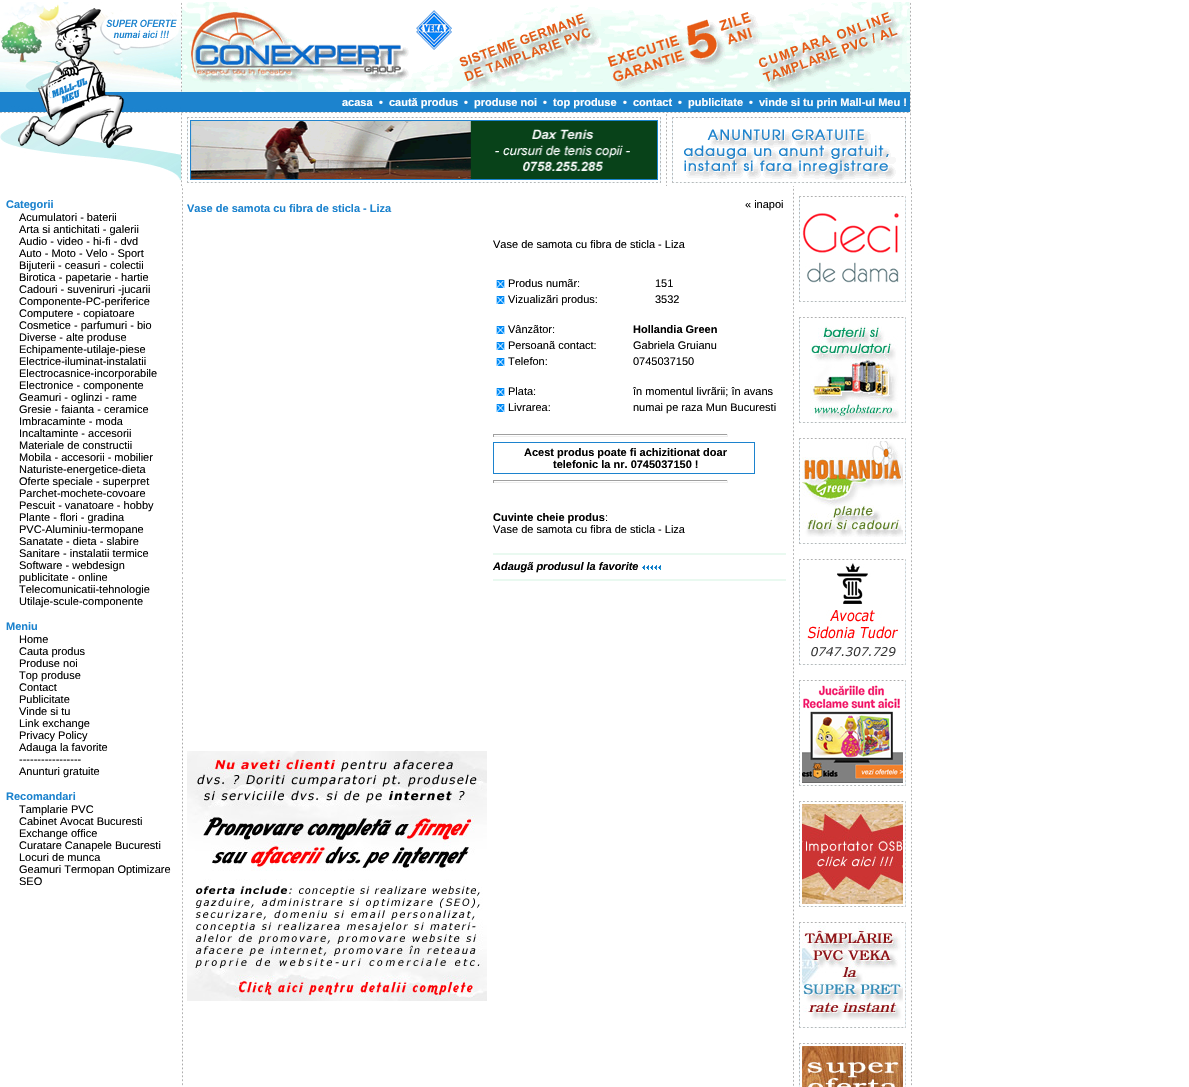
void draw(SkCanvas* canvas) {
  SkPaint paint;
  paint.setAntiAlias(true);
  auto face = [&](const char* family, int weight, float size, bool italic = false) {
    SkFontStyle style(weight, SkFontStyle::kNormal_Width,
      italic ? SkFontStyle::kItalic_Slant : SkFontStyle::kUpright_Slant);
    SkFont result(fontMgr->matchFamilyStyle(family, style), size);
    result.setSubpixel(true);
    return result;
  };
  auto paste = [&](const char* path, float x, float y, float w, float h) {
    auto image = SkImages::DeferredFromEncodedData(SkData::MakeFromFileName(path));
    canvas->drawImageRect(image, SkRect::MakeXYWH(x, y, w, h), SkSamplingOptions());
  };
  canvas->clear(0xffffffff);
  paste("img/1.png", 0, 2, 181, 178);
  paste("img/2.png", 181, 2, 1, 90);
  paste("img/3.png", 182, 2, 728, 90);
  paste("img/4.png", 910, 2, 1, 110);
  paste("img/5.png", 181, 92, 1, 21);
  paint.setColor(0xff1c83ce);
  canvas->drawRect(SkRect::MakeXYWH(182, 92, 728, 20), paint);
  paste("img/6.png", 182, 112, 729, 1);
  paste("img/7.png", 181, 113, 1, 73);
  paste("img/8.png", 187, 117, 474, 66);
  paint.setColor(0xffffffff);
  canvas->drawRect(SkRect::MakeXYWH(188, 118, 472, 64), paint);
  paste("img/9.png", 190, 120, 468, 60);
  paste("img/10.png", 666, 114, 1, 72);
  paste("img/11.png", 672, 117, 234, 66);
  canvas->drawRect(SkRect::MakeXYWH(673, 118, 232, 64), paint);
  paste("img/12.png", 684, 129, 212, 51);
  paste("img/7.png", 910, 113, 1, 73);
  paste("img/13.png", 182, 186, 1, 900);
  paste("img/14.png", 496, 280, 9, 8);
  paste("img/14.png", 496, 296, 9, 8);
  paste("img/14.png", 496, 326, 9, 8);
  paste("img/14.png", 496, 342, 9, 8);
  paste("img/14.png", 496, 358, 9, 8);
  paste("img/14.png", 496, 388, 9, 8);
  paste("img/14.png", 496, 404, 9, 8);
  {
    const struct { float x, y, w, h; SkColor color; } items[] = {
      {493, 434, 235, 1, 0xff9f9f9f},
      {727, 434, 1, 3, 0xffeeeeee},
      {493, 436, 235, 1, 0xffeeeeee},
      {493, 434, 1, 3, 0xff9f9f9f},
    };
    for (auto [x, y, w, h, color] : items) {
      paint.setColor(color);
      canvas->drawRect(SkRect::MakeXYWH(x, y, w, h), paint);
    }
  }
  paint.setStroke(true);
  paint.setStrokeWidth(1);
  paint.setColor(0xff1c83ce);
  canvas->drawRect(SkRect::MakeXYWH(493.5f, 442.5f, 261, 31), paint);
  paint.setStroke(false);
  {
    const struct { float x, y, w, h; SkColor color; } items[] = {
      {493, 480, 235, 1, 0xff9f9f9f},
      {727, 480, 1, 3, 0xffeeeeee},
      {493, 482, 235, 1, 0xffeeeeee},
      {493, 480, 1, 3, 0xff9f9f9f},
      {494, 554, 291, 1, 0xffe9f9f0},
      {493, 553, 293, 1, 0xffe9f9f0},
      {785, 553, 1, 2, 0xffe9f9f0},
      {493, 553, 1, 2, 0xffe9f9f0},
    };
    for (auto [x, y, w, h, color] : items) {
      paint.setColor(color);
      canvas->drawRect(SkRect::MakeXYWH(x, y, w, h), paint);
    }
  }
  paste("img/15.png", 642, 565, 19, 5);
  {
    const struct { float x, y, w, h; SkColor color; } items[] = {
      {494, 580, 291, 1, 0xffe9f9f0},
      {493, 579, 293, 1, 0xffe9f9f0},
      {785, 579, 1, 2, 0xffe9f9f0},
      {493, 579, 1, 2, 0xffe9f9f0},
    };
    for (auto [x, y, w, h, color] : items) {
      paint.setColor(color);
      canvas->drawRect(SkRect::MakeXYWH(x, y, w, h), paint);
    }
  }
  paste("img/16.png", 187, 751, 300, 250);
  paste("img/17.png", 793, 186, 1, 900);
  paste("img/18.png", 799, 196, 107, 106);
  paint.setColor(0xffffffff);
  canvas->drawRect(SkRect::MakeXYWH(800, 197, 105, 104), paint);
  paste("img/19.png", 802, 213, 97, 70);
  paste("img/18.png", 799, 317, 107, 106);
  canvas->drawRect(SkRect::MakeXYWH(800, 318, 105, 104), paint);
  paste("img/20.png", 810, 326, 89, 94);
  paste("img/18.png", 799, 438, 107, 106);
  canvas->drawRect(SkRect::MakeXYWH(800, 439, 105, 104), paint);
  paste("img/21.png", 802, 441, 101, 96);
  paste("img/18.png", 799, 559, 107, 106);
  canvas->drawRect(SkRect::MakeXYWH(800, 560, 105, 104), paint);
  paste("img/22.png", 807, 563, 91, 94);
  paste("img/18.png", 799, 680, 107, 106);
  canvas->drawRect(SkRect::MakeXYWH(800, 681, 105, 104), paint);
  paste("img/23.png", 802, 685, 101, 98);
  paste("img/18.png", 799, 801, 107, 106);
  canvas->drawRect(SkRect::MakeXYWH(800, 802, 105, 104), paint);
  paste("img/24.png", 802, 804, 101, 100);
  paste("img/18.png", 799, 922, 107, 106);
  canvas->drawRect(SkRect::MakeXYWH(800, 923, 105, 104), paint);
  paste("img/25.png", 802, 925, 101, 95);
  paste("img/26.png", 799, 1043, 107, 44);
  canvas->drawRect(SkRect::MakeXYWH(800, 1044, 105, 43), paint);
  paste("img/27.png", 802, 1046, 101, 41);
  paste("img/13.png", 911, 186, 1, 900);
  auto f0 = face("Liberation Sans", 700, 11);
  {
    const struct { const char* s; float x, y; } items[] = {
      {"acasa", 342, 106},
      {"•", 379, 106},
      {"caută produs", 389, 106},
      {"•", 464, 106},
      {"produse noi", 474, 106},
      {"•", 543, 106},
      {"top produse", 553, 106},
      {"•", 623, 106},
      {"contact", 633, 106},
      {"•", 678, 106},
      {"publicitate", 688, 106},
      {"•", 749, 106},
      {"vinde si tu prin Mall-ul Meu !", 759, 106},
    };
    for (auto [s, x, y] : items) {
      canvas->drawString(s, x, y, f0, paint);
    }
  }
  paint.setColor(0xff1c83ce);
  canvas->drawString("Categorii", 6, 208, f0, paint);
  auto f1 = face("Liberation Sans", 400, 11);
  paint.setColor(0xff000000);
  {
    const struct { const char* s; float x, y; } items[] = {
      {"Acumulatori - baterii", 19, 221},
      {"Arta si antichitati - galerii", 19, 233},
      {"Audio - video - hi-fi - dvd", 19, 245},
      {"Auto - Moto - Velo - Sport", 19, 257},
      {"Bijuterii - ceasuri - colectii", 19, 269},
      {"Birotica - papetarie - hartie", 19, 281},
      {"Cadouri - suveniruri -jucarii", 19, 293},
      {"Componente-PC-periferice", 19, 305},
      {"Computere - copiatoare", 19, 317},
      {"Cosmetice - parfumuri - bio", 19, 329},
      {"Diverse - alte produse", 19, 341},
      {"Echipamente-utilaje-piese", 19, 353},
      {"Electrice-iluminat-instalatii", 19, 365},
      {"Electrocasnice-incorporabile", 19, 377},
      {"Electronice - componente", 19, 389},
      {"Geamuri - oglinzi - rame", 19, 401},
      {"Gresie - faianta - ceramice", 19, 413},
      {"Imbracaminte - moda", 19, 425},
      {"Incaltaminte - accesorii", 19, 437},
      {"Materiale de constructii", 19, 449},
      {"Mobila - accesorii - mobilier", 19, 461},
      {"Naturiste-energetice-dieta", 19, 473},
      {"Oferte speciale - superpret", 19, 485},
      {"Parchet-mochete-covoare", 19, 497},
      {"Pescuit - vanatoare - hobby", 19, 509},
      {"Plante - flori - gradina", 19, 521},
      {"PVC-Aluminiu-termopane", 19, 533},
      {"Sanatate - dieta - slabire", 19, 545},
      {"Sanitare - instalatii termice", 19, 557},
      {"Software - webdesign", 19, 569},
      {"publicitate - online", 19, 581},
      {"Telecomunicatii-tehnologie", 19, 593},
      {"Utilaje-scule-componente", 19, 605},
    };
    for (auto [s, x, y] : items) {
      canvas->drawString(s, x, y, f1, paint);
    }
  }
  paint.setColor(0xff1c83ce);
  canvas->drawString("Meniu", 6, 630, f0, paint);
  paint.setColor(0xff000000);
  {
    const struct { const char* s; float x, y; } items[] = {
      {"Home", 19, 643},
      {"Cauta produs", 19, 655},
      {"Produse noi", 19, 667},
      {"Top produse", 19, 679},
      {"Contact", 19, 691},
      {"Publicitate", 19, 703},
      {"Vinde si tu", 19, 715},
      {"Link exchange", 19, 727},
      {"Privacy Policy", 19, 739},
      {"Adauga la favorite", 19, 751},
      {"-----------------", 19, 763},
      {"Anunturi gratuite", 19, 775},
    };
    for (auto [s, x, y] : items) {
      canvas->drawString(s, x, y, f1, paint);
    }
  }
  paint.setColor(0xff1c83ce);
  canvas->drawString("Recomandari", 6, 800, f0, paint);
  paint.setColor(0xff000000);
  {
    const struct { const char* s; float x, y; } items[] = {
      {"Tamplarie PVC", 19, 813},
      {"Cabinet Avocat Bucuresti", 19, 825},
      {"Exchange office", 19, 837},
      {"Curatare Canapele Bucuresti", 19, 849},
      {"Locuri de munca", 19, 861},
      {"Geamuri Termopan Optimizare", 19, 873},
      {"SEO", 19, 885},
    };
    for (auto [s, x, y] : items) {
      canvas->drawString(s, x, y, f1, paint);
    }
  }
  paint.setColor(0xff1c83ce);
  canvas->drawString("Vase de samota cu fibra de sticla - Liza", 187, 212, f0, paint);
  paint.setColor(0xff000000);
  {
    const struct { const char* s; float x, y; } items[] = {
      {"« inapoi", 745, 208},
      {"Vase de samota cu fibra de sticla - Liza", 493, 248},
      {"Produs numãr:", 508, 287},
      {"151", 655, 287},
      {"Vizualizãri produs:", 508, 303},
      {"3532", 655, 303},
      {"Vânzãtor:", 508, 333},
    };
    for (auto [s, x, y] : items) {
      canvas->drawString(s, x, y, f1, paint);
    }
  }
  canvas->drawString("Hollandia Green", 633, 333, f0, paint);
  {
    const struct { const char* s; float x, y; } items[] = {
      {"Persoanã contact:", 508, 349},
      {"Gabriela Gruianu", 633, 349},
      {"Telefon:", 508, 365},
      {"0745037150", 633, 365},
      {"Plata:", 508, 395},
      {"în momentul livrãrii; în avans", 633, 395},
      {"Livrarea:", 508, 411},
      {"numai pe raza Mun Bucuresti", 633, 411},
    };
    for (auto [s, x, y] : items) {
      canvas->drawString(s, x, y, f1, paint);
    }
  }
  {
    const struct { const char* s; float x, y; } items[] = {
      {"Acest produs poate fi achizitionat doar", 524, 456},
      {"telefonic la nr. 0745037150 !", 553, 468},
      {"Cuvinte cheie produs", 493, 521},
    };
    for (auto [s, x, y] : items) {
      canvas->drawString(s, x, y, f0, paint);
    }
  }
  canvas->drawString(":", 605, 521, f1, paint);
  canvas->drawString("Vase de samota cu fibra de sticla - Liza", 493, 533, f1, paint);
  auto f2 = face("Liberation Sans", 700, 11, true);
  canvas->drawString("Adaugã produsul la favorite", 493, 570, f2, paint);
}
